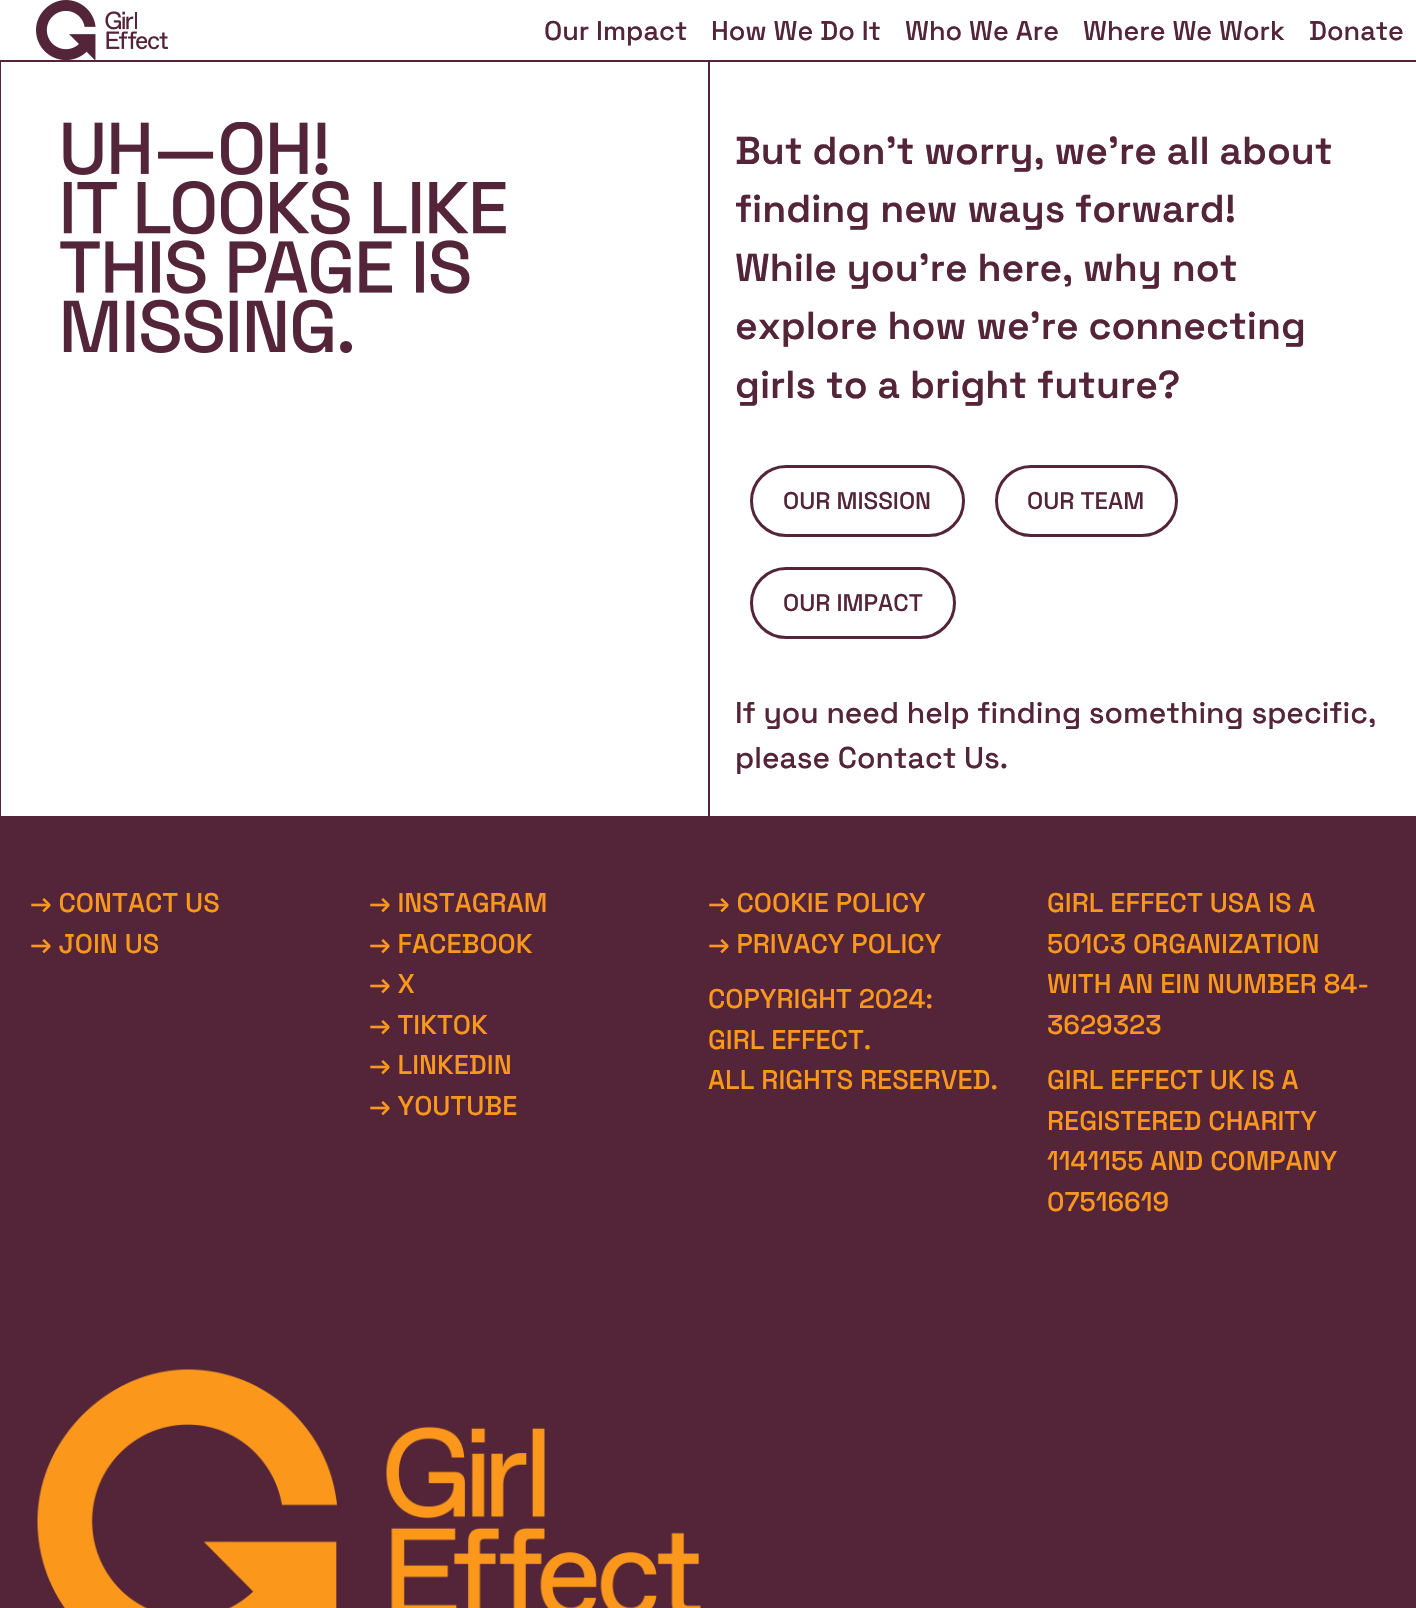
void draw(SkCanvas* canvas) {
  SkPaint paint;
  paint.setAntiAlias(true);
  auto face = [&](const char* family, int weight, float size, bool italic = false) {
    SkFontStyle style(weight, SkFontStyle::kNormal_Width,
      italic ? SkFontStyle::kItalic_Slant : SkFontStyle::kUpright_Slant);
    SkFont result(fontMgr->matchFamilyStyle(family, style), size);
    result.setSubpixel(true);
    return result;
  };
  auto paste = [&](const char* path, float x, float y, float w, float h) {
    auto image = SkImages::DeferredFromEncodedData(SkData::MakeFromFileName(path));
    canvas->drawImageRect(image, SkRect::MakeXYWH(x, y, w, h), SkSamplingOptions());
  };
  canvas->clear(0xffffffff);
  paste("img/1.png", 36, 0, 132, 60);
  paint.setStroke(true);
  paint.setStrokeWidth(2);
  paint.setColor(0xff542438);
  canvas->drawRect(SkRect::MakeXYWH(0, 61, 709, 756), paint);
  paste("img/2.png", 60, 122, 446, 231);
  paint.setStroke(false);
  canvas->drawRect(SkRect::MakeXYWH(707, 60, 709, 2), paint);
  paint.setStroke(true);
  paint.setStrokeWidth(3);
  canvas->drawRoundRect(SkRect::MakeXYWH(751.5f, 466.5f, 212, 69), 34.5f, 34.5f, paint);
  canvas->drawRoundRect(SkRect::MakeXYWH(996.5f, 466.5f, 180, 69), 34.5f, 34.5f, paint);
  canvas->drawRoundRect(SkRect::MakeXYWH(751.5f, 568.5f, 203, 69), 34.5f, 34.5f, paint);
  paint.setStroke(false);
  canvas->drawRect(SkRect::MakeXYWH(0, 816, 1416, 792), paint);
  paste("img/3.png", 37, 1369, 664, 239);
  auto f0 = face("Space Grotesk", 500, 27);
  {
    const struct { const char* s; float x, y; } items[] = {
      {"Our Impact", 544, 40},
      {"How We Do It", 711, 40},
      {"Who We Are", 905, 40},
      {"Where We Work", 1083, 40},
      {"Donate", 1309, 40},
    };
    for (auto [s, x, y] : items) {
      canvas->drawString(s, x, y, f0, paint);
    }
  }
  auto f1 = face("Space Grotesk", 600, 39);
  {
    const struct { const char* s; float x, y; } items[] = {
      {"But don't worry, we're all about", 735, 164},
      {"finding new ways forward!", 735, 222},
      {"While you're here, why not", 735, 281},
      {"explore how we’re connecting", 735, 339},
      {"girls to a bright future?", 735, 398},
    };
    for (auto [s, x, y] : items) {
      canvas->drawString(s, x, y, f1, paint);
    }
  }
  auto f2 = face("Space Grotesk", 500, 24);
  {
    const struct { const char* s; float x, y; } items[] = {
      {"OUR MISSION", 783, 509},
      {"OUR TEAM", 1027, 509},
      {"OUR IMPACT", 783, 611},
    };
    for (auto [s, x, y] : items) {
      canvas->drawString(s, x, y, f2, paint);
    }
  }
  auto f3 = face("Space Grotesk", 500, 30);
  canvas->drawString("If you need help finding something specific,", 735, 723, f3, paint);
  canvas->drawString("please Contact Us.", 735, 768, f3, paint);
  paint.setColor(0xfffa981d);
  {
    const struct { const char* s; float x, y; } items[] = {
      {"→ CONTACT US", 30, 912},
      {"→ JOIN US", 30, 953},
      {"→ INSTAGRAM", 369, 912},
      {"→ FACEBOOK", 369, 953},
      {"→ X", 369, 993},
      {"→ TIKTOK", 369, 1034},
      {"→ LINKEDIN", 369, 1074},
      {"→ YOUTUBE", 369, 1115},
      {"→ COOKIE POLICY", 708, 912},
      {"→ PRIVACY POLICY", 708, 953},
      {"COPYRIGHT 2024:", 708, 1008},
      {"GIRL EFFECT.", 708, 1049},
      {"ALL RIGHTS RESERVED.", 708, 1089},
      {"GIRL EFFECT USA IS A", 1047, 912},
      {"501C3 ORGANIZATION", 1047, 953},
      {"WITH AN EIN NUMBER 84-", 1047, 993},
      {"3629323", 1047, 1034},
      {"GIRL EFFECT UK IS A", 1047, 1089},
      {"REGISTERED CHARITY", 1047, 1130},
      {"1141155 AND COMPANY", 1047, 1170},
      {"07516619", 1047, 1211},
    };
    for (auto [s, x, y] : items) {
      canvas->drawString(s, x, y, f0, paint);
    }
  }
}
